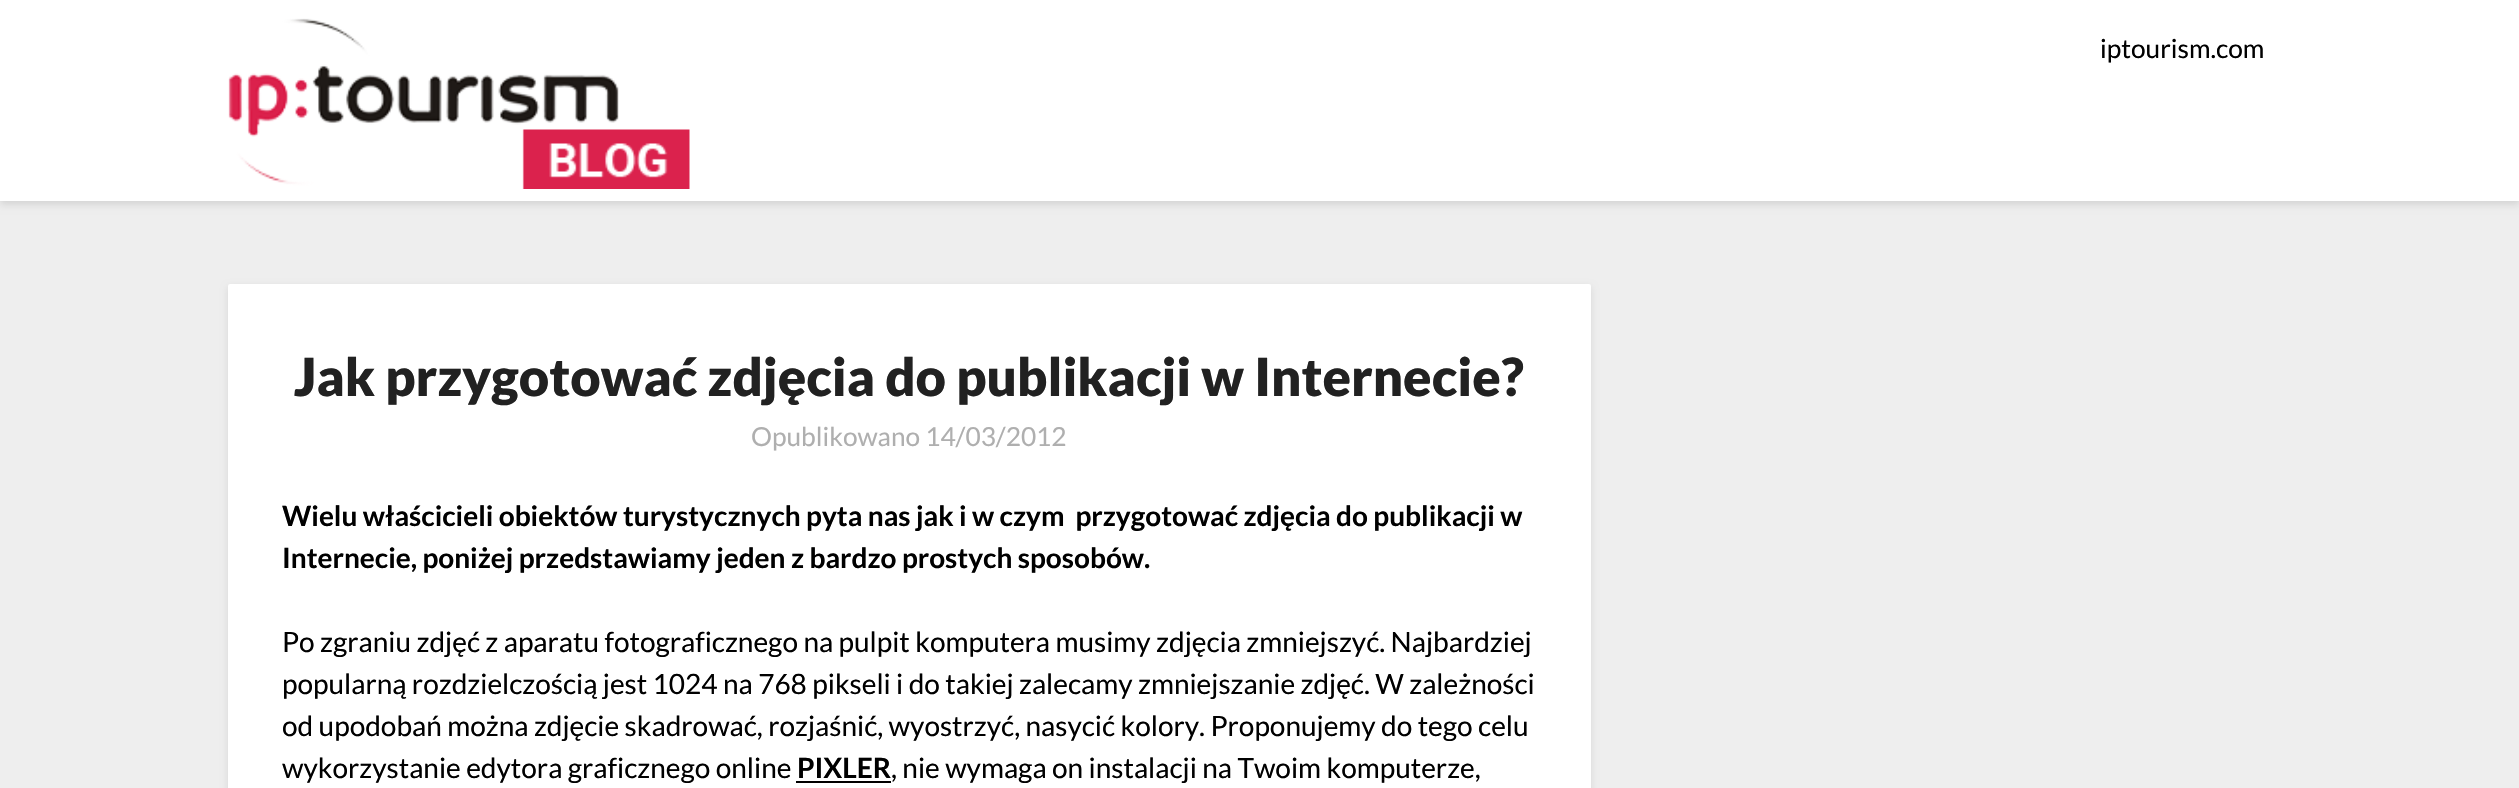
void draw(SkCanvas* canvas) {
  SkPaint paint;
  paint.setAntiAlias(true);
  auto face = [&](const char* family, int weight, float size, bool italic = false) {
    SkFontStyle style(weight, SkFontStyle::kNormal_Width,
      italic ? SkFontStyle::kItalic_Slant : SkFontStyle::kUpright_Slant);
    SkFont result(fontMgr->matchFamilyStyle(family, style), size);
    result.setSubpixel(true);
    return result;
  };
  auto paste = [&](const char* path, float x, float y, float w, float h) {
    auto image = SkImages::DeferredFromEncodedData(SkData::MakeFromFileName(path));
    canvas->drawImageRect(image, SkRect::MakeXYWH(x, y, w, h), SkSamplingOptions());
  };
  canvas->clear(0xffeeeeee);
  paint.setColor(0x1a000000);
  paint.setMaskFilter(SkMaskFilter::MakeBlur(kNormal_SkBlurStyle, 3.5f));
  canvas->drawRect(SkRect::MakeXYWH(0, 4, 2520, 201), paint);
  paint.setMaskFilter(nullptr);
  paint.setColor(0xffffffff);
  canvas->drawRect(SkRect::MakeXYWH(0, 0, 2519, 201), paint);
  paste("img/1.png", 228, 18, 462, 171);
  paint.setColor(0x1a000000);
  paint.setMaskFilter(SkMaskFilter::MakeBlur(kNormal_SkBlurStyle, 3.5f));
  canvas->drawRoundRect(SkRect::MakeXYWH(228, 287, 1363, 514), 2, 2, paint);
  paint.setMaskFilter(nullptr);
  paint.setColor(0xffffffff);
  canvas->drawRoundRect(SkRect::MakeXYWH(228, 284, 1363, 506), 2, 2, paint);
  paint.setColor(0xff000000);
  canvas->drawRect(SkRect::MakeXYWH(796, 781, 95, 2), paint);
  auto f0 = face("Lato", 400, 26.25f);
  canvas->drawString("iptourism.com", 2100, 58, f0, paint);
  auto f1 = face("Lato", 900, 52.5f);
  paint.setColor(0xff212121);
  canvas->drawString("Jak przygotować zdjęcia do publikacji w Internecie?", 294, 396, f1, paint);
  paint.setColor(0xffafafaf);
  canvas->drawString("Opublikowano 14/03/2012", 751, 446, f0, paint);
  auto f2 = face("Lato", 700, 28);
  paint.setColor(0xff000000);
  canvas->drawString("Wielu właścicieli obiektów turystycznych pyta nas jak i w czym  przygotować zdjęcia do publikacji w", 282, 526, f2, paint);
  canvas->drawString("Internecie, poniżej przedstawiamy jeden z bardzo prostych sposobów.", 282, 568, f2, paint);
  auto f3 = face("Lato", 400, 28);
  {
    const struct { const char* s; float x, y; } items[] = {
      {"Po zgraniu zdjęć z aparatu fotograficznego na pulpit komputera musimy zdjęcia zmniejszyć. Najbardziej", 282, 652},
      {"popularną rozdzielczością jest 1024 na 768 pikseli i do takiej zalecamy zmniejszanie zdjęć. W zależności", 282, 694},
      {"od upodobań można zdjęcie skadrować, rozjaśnić, wyostrzyć, nasycić kolory. Proponujemy do tego celu", 282, 736},
      {"wykorzystanie edytora graficznego online", 282, 778},
    };
    for (auto [s, x, y] : items) {
      canvas->drawString(s, x, y, f3, paint);
    }
  }
  canvas->drawString("PIXLER", 797, 778, f2, paint);
  canvas->drawString(", nie wymaga on instalacji na Twoim komputerze,", 891, 778, f3, paint);
}
